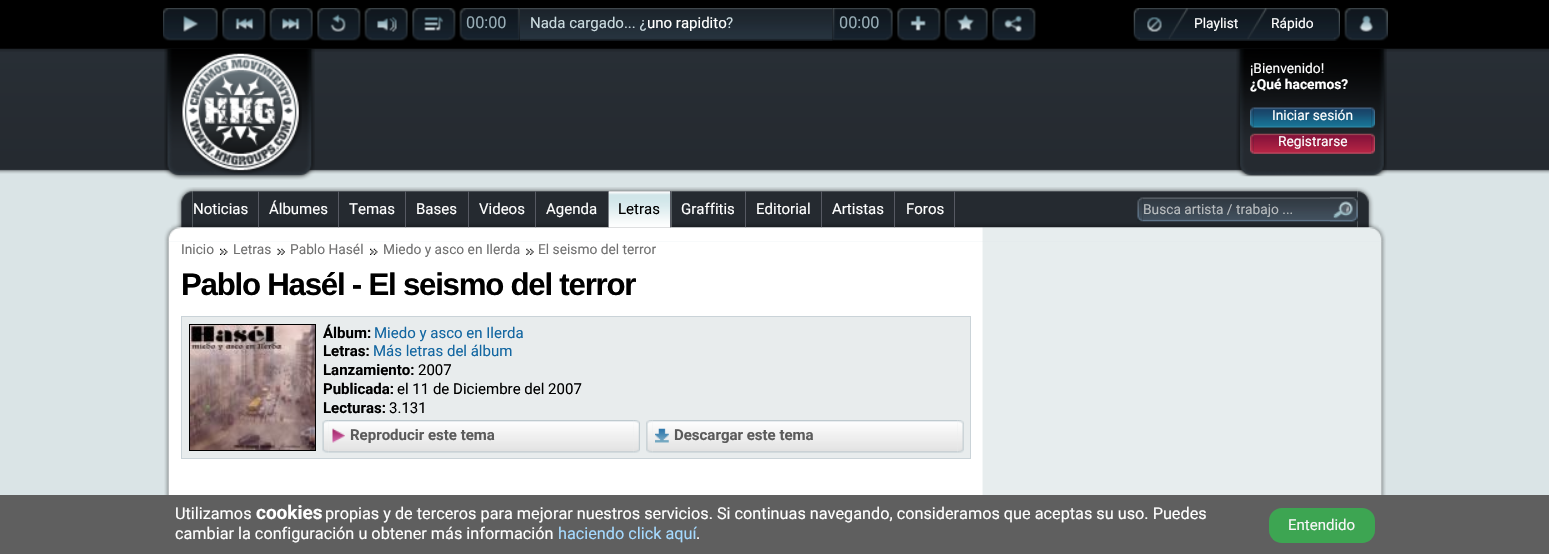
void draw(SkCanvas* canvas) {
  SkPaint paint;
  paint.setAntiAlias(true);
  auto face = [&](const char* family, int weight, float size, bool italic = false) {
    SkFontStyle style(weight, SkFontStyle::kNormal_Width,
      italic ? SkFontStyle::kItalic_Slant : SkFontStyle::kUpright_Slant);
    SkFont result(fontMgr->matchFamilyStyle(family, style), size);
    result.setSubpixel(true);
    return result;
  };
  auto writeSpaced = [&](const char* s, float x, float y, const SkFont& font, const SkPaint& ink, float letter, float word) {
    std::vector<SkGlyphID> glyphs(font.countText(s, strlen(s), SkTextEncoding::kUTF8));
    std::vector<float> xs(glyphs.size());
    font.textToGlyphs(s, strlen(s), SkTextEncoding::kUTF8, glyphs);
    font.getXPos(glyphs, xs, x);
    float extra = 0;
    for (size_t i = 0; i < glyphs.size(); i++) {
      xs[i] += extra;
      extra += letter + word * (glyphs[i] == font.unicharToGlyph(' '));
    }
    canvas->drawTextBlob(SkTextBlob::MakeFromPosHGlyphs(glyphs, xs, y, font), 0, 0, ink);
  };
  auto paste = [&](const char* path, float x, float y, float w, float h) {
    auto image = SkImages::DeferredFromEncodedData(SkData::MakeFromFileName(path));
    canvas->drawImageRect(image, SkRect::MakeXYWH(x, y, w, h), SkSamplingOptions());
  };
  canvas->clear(0xffdae4e6);
  paste("img/1.png", 0, 48, 1549, 126);
  paste("img/18.png", 164, 48, 151, 132);
  paste("img/20.png", 1236, 48, 151, 129);
  paste("img/2.png", 0, 0, 1549, 52);
  paste("img/3.png", 163, 8, 55, 33);
  paste("img/4.png", 222, 8, 44, 33);
  paste("img/5.png", 269, 8, 44, 33);
  paste("img/6.png", 317, 8, 44, 33);
  paste("img/7.png", 364, 8, 44, 33);
  paste("img/8.png", 412, 8, 44, 33);
  paste("img/9.png", 459, 8, 62, 33);
  paste("img/11.png", 832, 8, 61, 33);
  paste("img/10.png", 520, 8, 313, 33);
  paste("img/12.png", 897, 8, 44, 33);
  paste("img/13.png", 944, 8, 44, 33);
  paste("img/14.png", 992, 8, 44, 33);
  paste("img/15.png", 1133, 8, 207, 33);
  paste("img/16.png", 1147, 17, 15, 15);
  paste("img/17.png", 1344, 8, 44, 33);
  paste("img/19.png", 181, 53, 121, 121);
  paste("img/21.png", 1250, 107, 4, 21);
  paste("img/22.png", 1253, 107, 119, 21);
  paste("img/23.png", 1371, 107, 4, 21);
  paste("img/24.png", 1250, 133, 4, 21);
  paste("img/25.png", 1253, 133, 119, 21);
  paste("img/26.png", 1371, 133, 4, 21);
  paste("img/27.png", 171, 187, 22, 41);
  paste("img/28.png", 192, 187, 1166, 41);
  {
    const struct { float x, y, w, h; SkColor color; } items[] = {
      {258, 191, 1, 37, 0xff575a63},
      {338, 191, 1, 37, 0xff575a63},
      {405, 191, 1, 37, 0xff575a63},
      {468, 191, 1, 37, 0xff575a63},
      {535, 191, 1, 37, 0xff575a63},
      {608, 191, 1, 37, 0xff575a63},
    };
    for (auto [x, y, w, h, color] : items) {
      paint.setColor(color);
      canvas->drawRect(SkRect::MakeXYWH(x, y, w, h), paint);
    }
  }
  paste("img/29.png", 608, 191, 64, 37);
  {
    const struct { float x, y, w, h; SkColor color; } items[] = {
      {670, 191, 1, 37, 0xff575a63},
      {745, 191, 1, 37, 0xff575a63},
      {821, 191, 1, 37, 0xff575a63},
      {894, 191, 1, 37, 0xff575a63},
      {954, 191, 1, 37, 0xff575a63},
    };
    for (auto [x, y, w, h, color] : items) {
      paint.setColor(color);
      canvas->drawRect(SkRect::MakeXYWH(x, y, w, h), paint);
    }
  }
  paste("img/30.png", 1137, 197, 6, 25);
  paste("img/31.png", 1142, 197, 188, 25);
  paste("img/34.png", 1357, 187, 22, 41);
  paste("img/32.png", 1330, 197, 28, 25);
  paste("img/33.png", 1330, 197, 28, 25);
  paste("img/35.png", 164, 227, 1222, 15);
  paste("img/36.png", 164, 241, 1222, 254);
  paste("img/37.png", 220, 248, 8, 7);
  paste("img/38.png", 277, 248, 8, 7);
  paste("img/37.png", 370, 248, 8, 7);
  paste("img/39.png", 526, 248, 8, 7);
  paint.setColor(0xffe8eced);
  canvas->drawRect(SkRect::MakeXYWH(181.5f, 316.5f, 789, 142), paint);
  paint.setStroke(true);
  paint.setStrokeWidth(1);
  paint.setColor(0xffcad3d8);
  canvas->drawRect(SkRect::MakeXYWH(181.5f, 316.5f, 789, 142), paint);
  paint.setColor(0xff000000);
  canvas->drawRect(SkRect::MakeXYWH(189.5f, 324.5f, 126, 126), paint);
  paste("img/40.png", 190, 325, 125, 125);
  paste("img/41.png", 322, 420, 7, 33);
  paste("img/44.png", 633, 420, 7, 33);
  paste("img/42.png", 329, 420, 305, 33);
  paste("img/43.png", 332, 428, 13, 15);
  paste("img/45.png", 646, 420, 7, 33);
  paste("img/48.png", 957, 420, 7, 33);
  paste("img/46.png", 652, 420, 306, 33);
  paste("img/47.png", 655, 428, 14, 15);
  paint.setStroke(false);
  paint.setColor(0xff5f5f5f);
  canvas->drawRect(SkRect::MakeXYWH(0, 495, 1549, 59), paint);
  paint.setColor(0xff3da552);
  canvas->drawRoundRect(SkRect::MakeXYWH(1269, 508, 106, 35), 13, 13, paint);
  auto f0 = face("Roboto", 400, 16.25f);
  paint.setColor(0xff97acb5);
  canvas->drawString("00:00", 466, 28, f0, paint);
  auto f1 = face("Roboto", 400, 15);
  paint.setColor(0xffcbdbe0);
  canvas->drawString("Nada cargado... ¿", 530, 28, f1, paint);
  paint.setColor(0xffffffff);
  canvas->drawString("uno rapidito", 647, 28, f1, paint);
  paint.setColor(0xffcbdbe0);
  canvas->drawString("?", 726, 28, f1, paint);
  paint.setColor(0xff97acb5);
  canvas->drawString("00:00", 839, 28, f0, paint);
  auto f2 = face("Roboto", 400, 13.75f);
  paint.setColor(0xffffffff);
  {
    const struct { const char* s; float x, y; } items[] = {
      {"Playlist", 1194, 28},
      {"Rápido", 1271, 28},
      {"¡Bienvenido!", 1250, 73},
    };
    for (auto [s, x, y] : items) {
      canvas->drawString(s, x, y, f2, paint);
    }
  }
  auto f3 = face("Roboto", 700, 13.75f);
  canvas->drawString("¿Qué hacemos?", 1250, 89, f3, paint);
  canvas->drawString("Iniciar sesión", 1272, 120, f2, paint);
  canvas->drawString("Registrarse", 1278, 146, f2, paint);
  {
    const struct { const char* s; float x, y; } items[] = {
      {"Noticias", 193, 214},
      {"Álbumes", 269, 214},
      {"Temas", 349, 214},
      {"Bases", 416, 214},
      {"Videos", 479, 214},
      {"Agenda", 546, 214},
    };
    for (auto [s, x, y] : items) {
      canvas->drawString(s, x, y, f1, paint);
    }
  }
  paint.setColor(0xff000000);
  canvas->drawString("Letras", 618, 214, f1, paint);
  paint.setColor(0xffffffff);
  {
    const struct { const char* s; float x, y; } items[] = {
      {"Graffitis", 681, 214},
      {"Editorial", 756, 214},
      {"Artistas", 832, 214},
      {"Foros", 906, 214},
    };
    for (auto [s, x, y] : items) {
      canvas->drawString(s, x, y, f1, paint);
    }
  }
  paint.setColor(0xffb8bcbe);
  canvas->drawString("Busca artista / trabajo ...", 1143, 214, f2, paint);
  paint.setColor(0xff717171);
  {
    const struct { const char* s; float x, y; } items[] = {
      {"Inicio", 181, 254},
      {"Letras", 233, 254},
      {"Pablo Hasél", 290, 254},
      {"Miedo y asco en Ilerda", 383, 254},
      {"El seismo del terror", 538, 254},
    };
    for (auto [s, x, y] : items) {
      canvas->drawString(s, x, y, f2, paint);
    }
  }
  auto f4 = face("Liberation Sans", 700, 31.25f);
  paint.setColor(0xff000000);
  writeSpaced("Pablo Hasél - El seismo del terror", 181, 295, f4, paint, -1.25f, 0);
  auto f5 = face("Roboto", 700, 15);
  canvas->drawString("Álbum:", 323, 338, f5, paint);
  paint.setColor(0xff1266a1);
  canvas->drawString("Miedo y asco en Ilerda", 374, 338, f1, paint);
  paint.setColor(0xff000000);
  canvas->drawString("Letras:", 323, 356, f5, paint);
  paint.setColor(0xff1266a1);
  canvas->drawString("Más letras del álbum", 373, 356, f1, paint);
  paint.setColor(0xff000000);
  canvas->drawString("Lanzamiento:", 323, 375, f5, paint);
  canvas->drawString("2007", 418, 375, f1, paint);
  canvas->drawString("Publicada:", 323, 394, f5, paint);
  canvas->drawString("el 11 de Diciembre del 2007", 397, 394, f1, paint);
  canvas->drawString("Lecturas:", 323, 413, f5, paint);
  canvas->drawString("3.131", 389, 413, f1, paint);
  paint.setColor(0xff5b5b5b);
  canvas->drawString("Reproducir este tema", 350, 440, f5, paint);
  canvas->drawString("Descargar este tema", 674, 440, f5, paint);
  paint.setColor(0xffffffff);
  canvas->drawString("Utilizamos", 175, 519, f0, paint);
  auto f6 = face("Roboto", 700, 19);
  canvas->drawString("cookies", 256, 519, f6, paint);
  canvas->drawString("propias y de terceros para mejorar nuestros servicios. Si continuas navegando, consideramos que aceptas su uso. Puedes", 325, 519, f0, paint);
  canvas->drawString("cambiar la configuración u obtener más información", 175, 539, f0, paint);
  paint.setColor(0xffa5daff);
  canvas->drawString("haciendo click aquí", 558, 539, f0, paint);
  paint.setColor(0xffffffff);
  canvas->drawString(".", 696, 539, f0, paint);
  paint.setColor(0xfff7f7f7);
  canvas->drawString("Entendido", 1288, 530, f1, paint);
}
